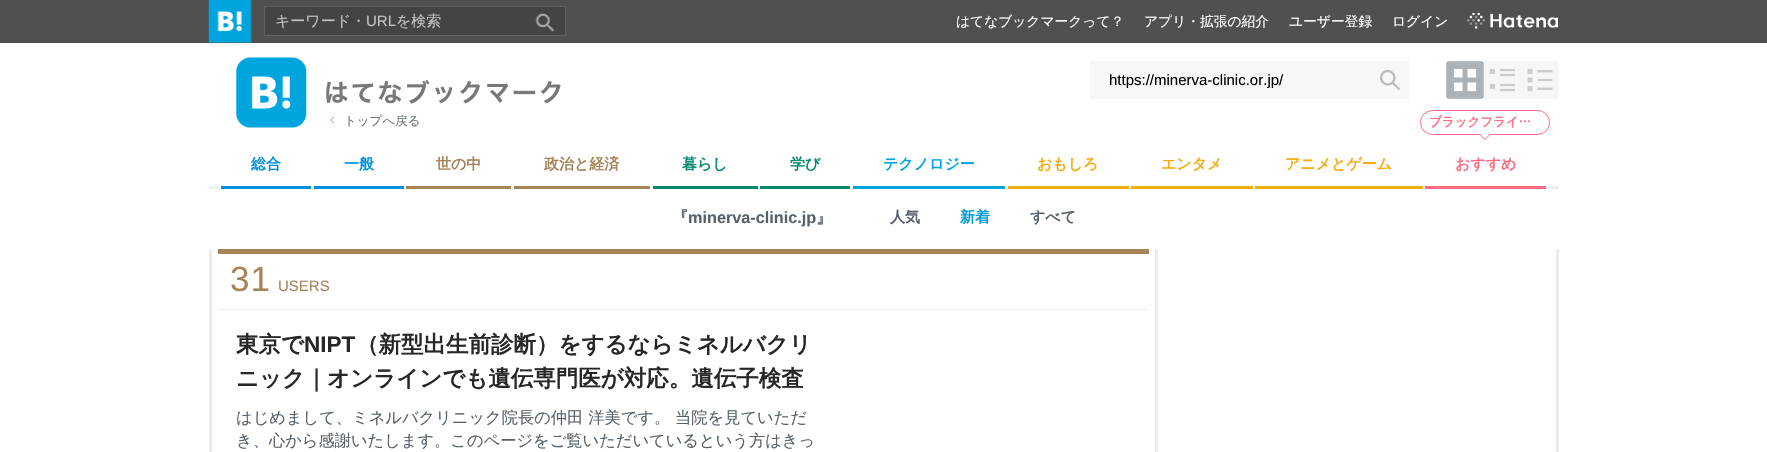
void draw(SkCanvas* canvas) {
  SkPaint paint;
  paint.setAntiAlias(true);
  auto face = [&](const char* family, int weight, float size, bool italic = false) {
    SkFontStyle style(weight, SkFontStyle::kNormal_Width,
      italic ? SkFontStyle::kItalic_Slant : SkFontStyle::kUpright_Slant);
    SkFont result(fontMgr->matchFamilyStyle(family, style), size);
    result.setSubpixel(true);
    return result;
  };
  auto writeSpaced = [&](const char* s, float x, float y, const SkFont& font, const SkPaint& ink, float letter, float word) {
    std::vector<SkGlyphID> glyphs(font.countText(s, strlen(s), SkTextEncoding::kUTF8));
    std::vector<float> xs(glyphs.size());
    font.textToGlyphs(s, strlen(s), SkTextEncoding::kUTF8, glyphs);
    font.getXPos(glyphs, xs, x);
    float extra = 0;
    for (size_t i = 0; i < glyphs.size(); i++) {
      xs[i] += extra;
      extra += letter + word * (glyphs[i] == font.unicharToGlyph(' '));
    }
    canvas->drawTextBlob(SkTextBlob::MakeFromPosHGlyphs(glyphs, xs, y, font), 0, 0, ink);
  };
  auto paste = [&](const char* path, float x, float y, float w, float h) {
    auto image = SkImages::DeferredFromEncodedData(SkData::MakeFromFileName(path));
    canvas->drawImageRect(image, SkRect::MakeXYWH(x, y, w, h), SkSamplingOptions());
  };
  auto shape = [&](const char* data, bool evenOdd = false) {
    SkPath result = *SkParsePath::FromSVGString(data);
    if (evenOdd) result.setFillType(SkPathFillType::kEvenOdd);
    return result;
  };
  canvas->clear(0xffffffff);
  paint.setColor(0xff505050);
  canvas->drawRect(SkRect::MakeXYWH(0, 0, 1767, 43), paint);
  paste("img/1.png", 208, 0, 44, 43);
  paint.setColor(0xff444444);
  canvas->drawRect(SkRect::MakeXYWH(264.5f, 6.5f, 301, 29), paint);
  paint.setStroke(true);
  paint.setStrokeWidth(1);
  paint.setColor(0xff606060);
  canvas->drawRect(SkRect::MakeXYWH(264.5f, 6.5f, 301, 29), paint);
  paste("img/2.png", 535, 13, 19, 19);
  paste("img/3.png", 1467, 13, 91, 16);
  paint.setStroke(false);
  paint.setColor(0xfff6f7f8);
  canvas->drawRect(SkRect::MakeXYWH(1090, 61, 319, 38), paint);
  paste("img/4.png", 1380, 70, 20, 20);
  paint.setColor(0xfff6f6f6);
  canvas->drawRect(SkRect::MakeXYWH(1446, 61, 113, 38), paint);
  paste("img/5.png", 1446, 61, 38, 38);
  paste("img/6.png", 1489, 69, 26, 23);
  paste("img/7.png", 1527, 69, 26, 23);
  paste("img/8.png", 236, 57, 71, 71);
  paste("img/9.png", 326, 80, 235, 24);
  paint.setColor(0xff999999);
  canvas->drawPath(shape("M334 116V124L330 120Z"), paint);
  paint.setColor(0xffffffff);
  canvas->drawPath(shape("M335 116V124L331 120Z"), paint);
  {
    const struct { float x, y, w, h; SkColor color; } items[] = {
      {221, 186, 90, 3, 0xff008fde},
      {314, 186, 90, 3, 0xff008fde},
      {406, 186, 105, 3, 0xffa78358},
      {514, 186, 136, 3, 0xffa78358},
      {653, 186, 105, 3, 0xff068b71},
      {760, 186, 90, 3, 0xff068b71},
      {853, 186, 152, 3, 0xff00a5de},
      {1008, 186, 121, 3, 0xfff5ac0f},
      {1131, 186, 122, 3, 0xfff5ac0f},
      {1255, 186, 168, 3, 0xfff5ac0f},
    };
    for (auto [x, y, w, h, color] : items) {
      paint.setColor(color);
      canvas->drawRect(SkRect::MakeXYWH(x, y, w, h), paint);
    }
  }
  paint.setStroke(true);
  paint.setColor(0xffff6b83);
  canvas->drawRoundRect(SkRect::MakeXYWH(1420.5f, 110.5f, 129, 24), 12, 12, paint);
  paint.setStroke(false);
  canvas->drawPath(shape("M1480 135H1490L1485 140Z"), paint);
  paint.setColor(0xffffffff);
  canvas->drawPath(shape("M1480 134H1490L1485 139Z"), paint);
  {
    const struct { float x, y, w, h; SkColor color; } items[] = {
      {1425, 186, 121, 3, 0xffff6b83},
      {209, 186, 10, 3, 0xffeeeeee},
      {1549, 186, 10, 3, 0xffeeeeee},
      {1556, 249, 3, 203, 0xffececec},
      {209, 249, 3, 203, 0xffececec},
      {1155, 249, 3, 203, 0xffececec},
      {218, 249, 931, 5, 0xffa78358},
      {218, 309, 931, 1, 0xffececec},
    };
    for (auto [x, y, w, h, color] : items) {
      paint.setColor(color);
      canvas->drawRect(SkRect::MakeXYWH(x, y, w, h), paint);
    }
  }
  auto f0 = face("WenQuanYi Zen Hei", 500, 15);
  paint.setColor(0xffc2c2c2);
  canvas->drawString("キーワード・", 275, 26, f0, paint);
  auto f1 = face("Liberation Sans", 400, 15);
  canvas->drawString("URL", 366, 26, f1, paint);
  canvas->drawString("を検索", 396, 26, f0, paint);
  auto f2 = face("WenQuanYi Zen Hei", 500, 13.75f);
  paint.setColor(0xffffffff);
  {
    const struct { const char* s; float x, y; } items[] = {
      {"はてなブックマークって？", 956, 26},
      {"アプリ・拡張の紹介", 1144, 26},
      {"ユーザー登録", 1289, 26},
      {"ログイン", 1392, 26},
    };
    for (auto [s, x, y] : items) {
      canvas->drawString(s, x, y, f2, paint);
    }
  }
  paint.setColor(0xff000000);
  canvas->drawString("https://minerva-clinic.or.jp/", 1109, 85, f1, paint);
  auto f3 = face("WenQuanYi Zen Hei", 500, 12.5f);
  paint.setColor(0xff6b757e);
  canvas->drawString("トップへ戻る", 344, 125, f3, paint);
  auto f4 = face("WenQuanYi Zen Hei", 700, 15);
  paint.setColor(0xff008fde);
  canvas->drawString("総合", 251, 169, f4, paint);
  canvas->drawString("一般", 344, 169, f4, paint);
  paint.setColor(0xffa78358);
  canvas->drawString("世の中", 436, 169, f4, paint);
  canvas->drawString("政治と経済", 544, 169, f4, paint);
  paint.setColor(0xff068b71);
  canvas->drawString("暮らし", 682, 169, f4, paint);
  canvas->drawString("学び", 790, 169, f4, paint);
  paint.setColor(0xff00a5de);
  canvas->drawString("テクノロジー", 883, 169, f4, paint);
  paint.setColor(0xfff5ac0f);
  {
    const struct { const char* s; float x, y; } items[] = {
      {"おもしろ", 1037, 169},
      {"エンタメ", 1161, 169},
      {"アニメとゲーム", 1285, 169},
    };
    for (auto [s, x, y] : items) {
      canvas->drawString(s, x, y, f4, paint);
    }
  }
  auto f5 = face("WenQuanYi Zen Hei", 700, 12.5f);
  paint.setColor(0xffff6b83);
  canvas->drawString("ブラックフライ…", 1429, 126, f5, paint);
  canvas->drawString("おすすめ", 1455, 169, f4, paint);
  auto f6 = face("WenQuanYi Zen Hei", 700, 16.25f);
  paint.setColor(0xff55606a);
  canvas->drawString("『", 672, 223, f6, paint);
  auto f7 = face("Liberation Sans", 700, 16.25f);
  canvas->drawString("minerva-clinic.jp", 688, 223, f7, paint);
  canvas->drawString("』", 816, 223, f6, paint);
  canvas->drawString("人気", 890, 222, f4, paint);
  paint.setColor(0xff009ad0);
  canvas->drawString("新着", 960, 222, f4, paint);
  paint.setColor(0xff55606a);
  canvas->drawString("すべて", 1030, 222, f4, paint);
  auto f8 = face("Liberation Sans", 400, 35);
  paint.setColor(0xffa78358);
  writeSpaced("31", 230, 291, f8, paint, 1, 0);
  canvas->drawString("USERS", 278, 291, f1, paint);
  auto f9 = face("WenQuanYi Zen Hei", 700, 22.5f);
  paint.setColor(0xff25282b);
  canvas->drawString("東京で", 236, 352, f9, paint);
  auto f10 = face("Liberation Sans", 700, 22.5f);
  canvas->drawString("NIPT", 304, 352, f10, paint);
  canvas->drawString("（新型出生前診断）をするならミネルバクリ", 356, 352, f9, paint);
  canvas->drawString("ニック｜オンラインでも遺伝専門医が対応。遺伝子検査", 236, 386, f9, paint);
  auto f11 = face("WenQuanYi Zen Hei", 500, 16.25f);
  paint.setColor(0xff55606a);
  canvas->drawString("はじめまして、ミネルバクリニック院長の仲田 洋美です。 当院を見ていただ", 236, 423, f11, paint);
  canvas->drawString("き、心から感謝いたします。このページをご覧いただいているという方はきっ", 236, 446, f11, paint);
}
